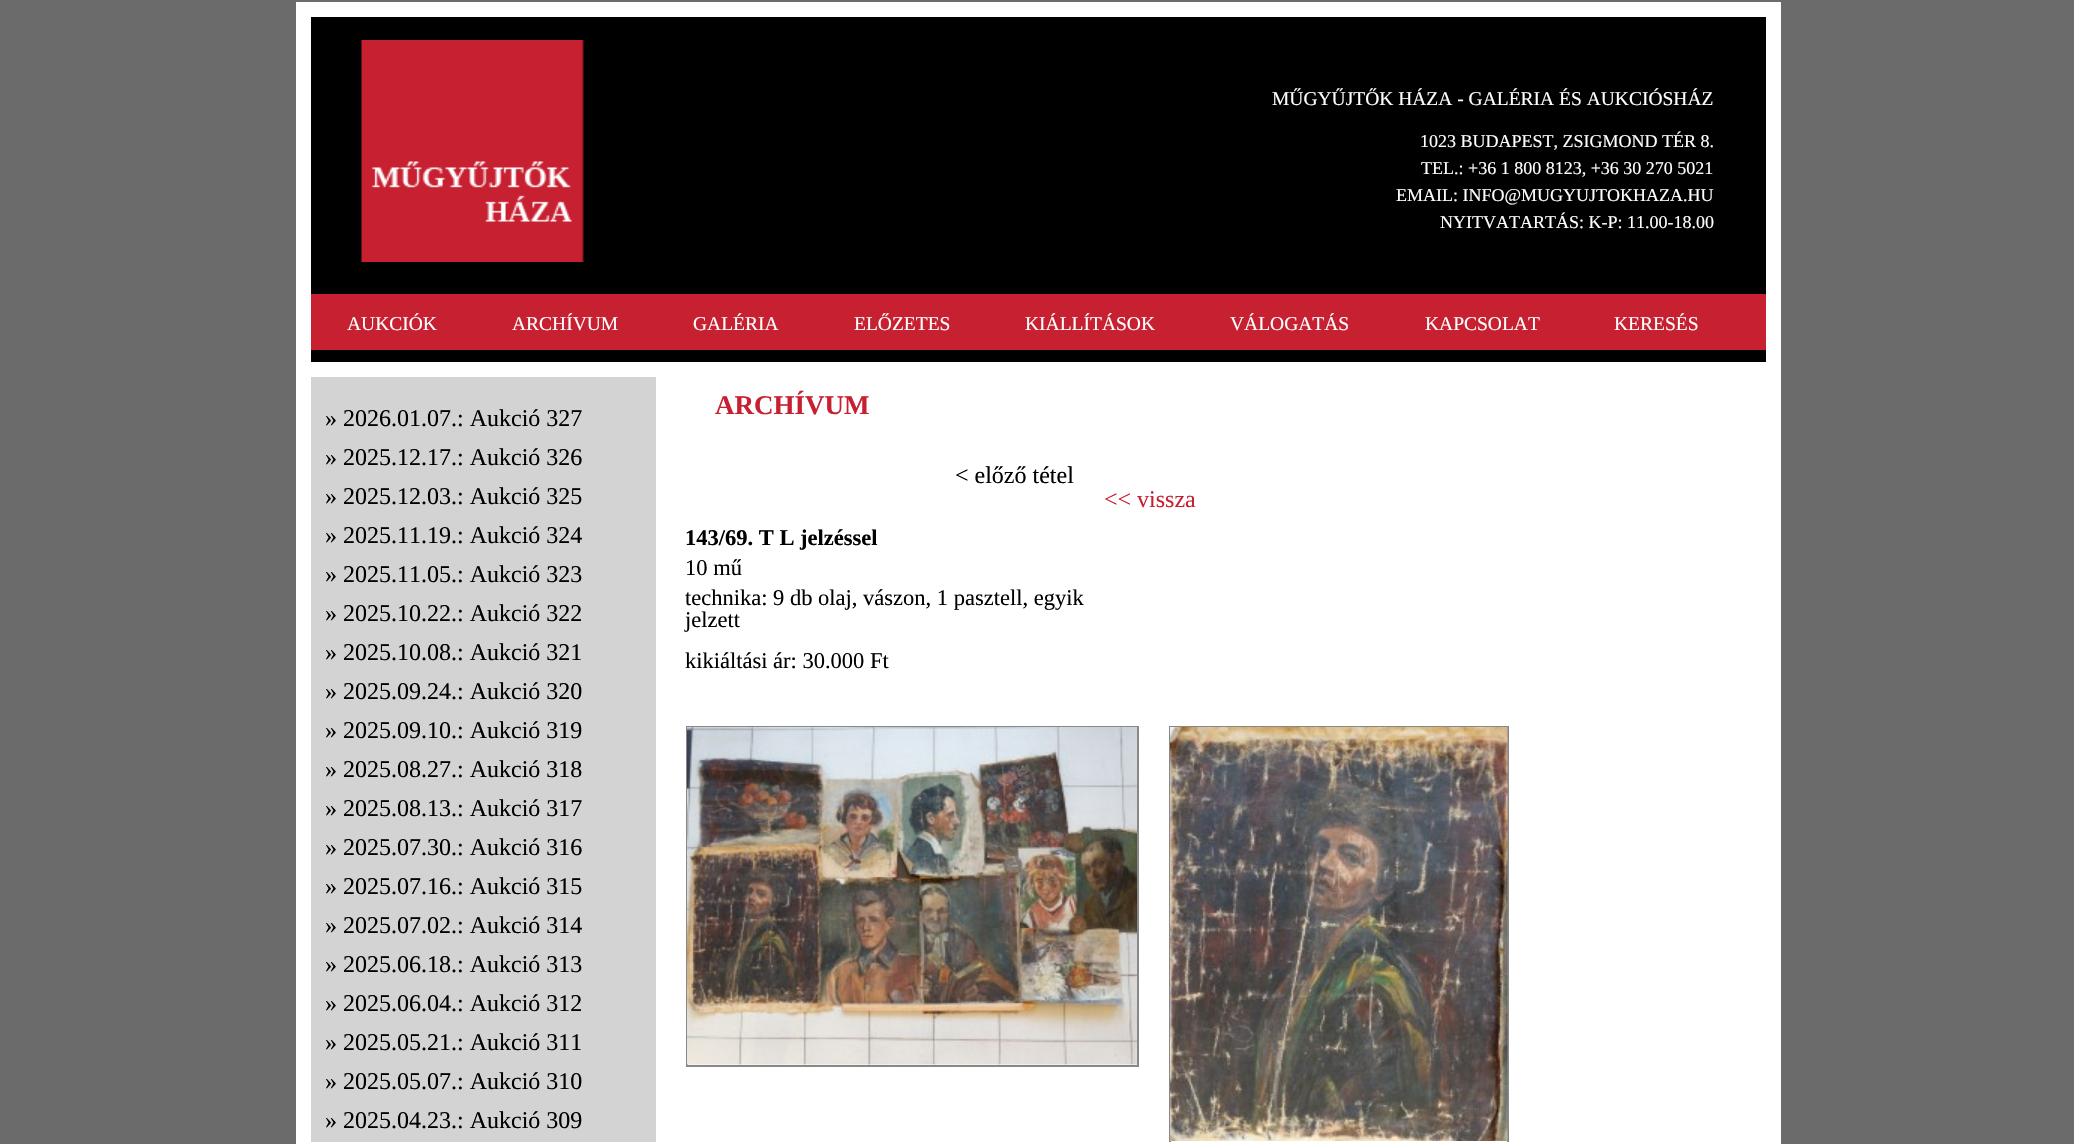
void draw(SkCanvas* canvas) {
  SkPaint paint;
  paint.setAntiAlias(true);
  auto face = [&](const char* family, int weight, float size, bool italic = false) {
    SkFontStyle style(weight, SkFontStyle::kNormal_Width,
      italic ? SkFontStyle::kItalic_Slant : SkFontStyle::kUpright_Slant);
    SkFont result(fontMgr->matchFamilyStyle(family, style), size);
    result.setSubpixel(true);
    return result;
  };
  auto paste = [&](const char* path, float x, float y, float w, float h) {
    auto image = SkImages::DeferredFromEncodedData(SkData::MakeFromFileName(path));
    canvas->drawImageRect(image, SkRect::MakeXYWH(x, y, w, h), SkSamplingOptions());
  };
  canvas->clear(0xff6b6b6b);
  paint.setColor(0xffffffff);
  canvas->drawRect(SkRect::MakeXYWH(296, 2, 1485, 1142), paint);
  paint.setColor(0xff000000);
  canvas->drawRect(SkRect::MakeXYWH(311, 17, 1455, 345), paint);
  paste("img/1.png", 361, 40, 223, 222);
  paint.setColor(0xffc62031);
  canvas->drawRect(SkRect::MakeXYWH(311, 294, 1455, 56), paint);
  paint.setColor(0xffd3d3d3);
  canvas->drawRect(SkRect::MakeXYWH(311, 377, 345, 765), paint);
  paint.setStroke(true);
  paint.setStrokeWidth(2);
  paint.setColor(0xff888888);
  canvas->drawRect(SkRect::MakeXYWH(687, 727, 451, 339), paint);
  paste("img/2.png", 687, 727, 450, 338);
  canvas->save();
  canvas->clipRect(SkRect::MakeXYWH(656, 362, 1110, 780));
  canvas->drawRect(SkRect::MakeXYWH(1170, 727, 338, 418), paint);
  canvas->restore();
  paste("img/3.png", 1170, 727, 338, 414);
  auto f0 = face("Liberation Serif", 400, 19.5f);
  paint.setStroke(false);
  paint.setColor(0xffffffff);
  canvas->drawString("MŰGYŰJTŐK HÁZA - GALÉRIA ÉS AUKCIÓSHÁZ", 1272, 105, f0, paint);
  auto f1 = face("Liberation Serif", 400, 18);
  {
    const struct { const char* s; float x, y; } items[] = {
      {"1023 BUDAPEST, ZSIGMOND TÉR 8.", 1420, 147},
      {"TEL.: +36 1 800 8123, +36 30 270 5021", 1421, 174},
      {"EMAIL: INFO@MUGYUJTOKHAZA.HU", 1396, 201},
      {"NYITVATARTÁS: K-P: 11.00-18.00", 1440, 228},
    };
    for (auto [s, x, y] : items) {
      canvas->drawString(s, x, y, f1, paint);
    }
  }
  {
    const struct { const char* s; float x, y; } items[] = {
      {"AUKCIÓK", 347, 330},
      {"ARCHÍVUM", 512, 330},
      {"GALÉRIA", 693, 330},
      {"ELŐZETES", 854, 330},
      {"KIÁLLÍTÁSOK", 1025, 330},
      {"VÁLOGATÁS", 1230, 330},
      {"KAPCSOLAT", 1425, 330},
      {"KERESÉS", 1614, 330},
    };
    for (auto [s, x, y] : items) {
      canvas->drawString(s, x, y, f0, paint);
    }
  }
  auto f2 = face("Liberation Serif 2", 400, 24);
  paint.setColor(0xff000000);
  canvas->drawString("»", 325, 426, f2, paint);
  auto f3 = face("Liberation Serif", 400, 24);
  canvas->drawString("2026.01.07.: Aukció 327", 343, 426, f3, paint);
  canvas->drawString("»", 325, 465, f2, paint);
  canvas->drawString("2025.12.17.: Aukció 326", 343, 465, f3, paint);
  canvas->drawString("»", 325, 504, f2, paint);
  canvas->drawString("2025.12.03.: Aukció 325", 343, 504, f3, paint);
  canvas->drawString("»", 325, 543, f2, paint);
  canvas->drawString("2025.11.19.: Aukció 324", 343, 543, f3, paint);
  canvas->drawString("»", 325, 582, f2, paint);
  canvas->drawString("2025.11.05.: Aukció 323", 343, 582, f3, paint);
  canvas->drawString("»", 325, 621, f2, paint);
  canvas->drawString("2025.10.22.: Aukció 322", 343, 621, f3, paint);
  canvas->drawString("»", 325, 660, f2, paint);
  canvas->drawString("2025.10.08.: Aukció 321", 343, 660, f3, paint);
  canvas->drawString("»", 325, 699, f2, paint);
  canvas->drawString("2025.09.24.: Aukció 320", 343, 699, f3, paint);
  canvas->drawString("»", 325, 738, f2, paint);
  canvas->drawString("2025.09.10.: Aukció 319", 343, 738, f3, paint);
  canvas->drawString("»", 325, 777, f2, paint);
  canvas->drawString("2025.08.27.: Aukció 318", 343, 777, f3, paint);
  canvas->drawString("»", 325, 816, f2, paint);
  canvas->drawString("2025.08.13.: Aukció 317", 343, 816, f3, paint);
  canvas->drawString("»", 325, 855, f2, paint);
  canvas->drawString("2025.07.30.: Aukció 316", 343, 855, f3, paint);
  canvas->drawString("»", 325, 894, f2, paint);
  canvas->drawString("2025.07.16.: Aukció 315", 343, 894, f3, paint);
  canvas->drawString("»", 325, 933, f2, paint);
  canvas->drawString("2025.07.02.: Aukció 314", 343, 933, f3, paint);
  canvas->drawString("»", 325, 972, f2, paint);
  canvas->drawString("2025.06.18.: Aukció 313", 343, 972, f3, paint);
  canvas->drawString("»", 325, 1011, f2, paint);
  canvas->drawString("2025.06.04.: Aukció 312", 343, 1011, f3, paint);
  canvas->drawString("»", 325, 1050, f2, paint);
  canvas->drawString("2025.05.21.: Aukció 311", 343, 1050, f3, paint);
  canvas->drawString("»", 325, 1089, f2, paint);
  canvas->drawString("2025.05.07.: Aukció 310", 343, 1089, f3, paint);
  canvas->drawString("»", 325, 1128, f2, paint);
  canvas->drawString("2025.04.23.: Aukció 309", 343, 1128, f3, paint);
  auto f4 = face("Liberation Serif", 700, 27);
  paint.setColor(0xffc62031);
  canvas->drawString("ARCHÍVUM", 715, 414, f4, paint);
  paint.setColor(0xff000000);
  canvas->drawString("< előző tétel", 955, 483, f3, paint);
  paint.setColor(0xffc62031);
  canvas->drawString("<< vissza", 1104, 507, f3, paint);
  auto f5 = face("Liberation Serif", 700, 22.5f);
  paint.setColor(0xff000000);
  canvas->drawString("143/69. T L jelzéssel", 685, 545, f5, paint);
  auto f6 = face("Liberation Serif", 400, 22.5f);
  {
    const struct { const char* s; float x, y; } items[] = {
      {"10 mű", 685, 575},
      {"technika: 9 db olaj, vászon, 1 pasztell, egyik", 685, 605},
      {"jelzett", 685, 627},
      {"kikiáltási ár: 30.000 Ft", 685, 668},
    };
    for (auto [s, x, y] : items) {
      canvas->drawString(s, x, y, f6, paint);
    }
  }
}
